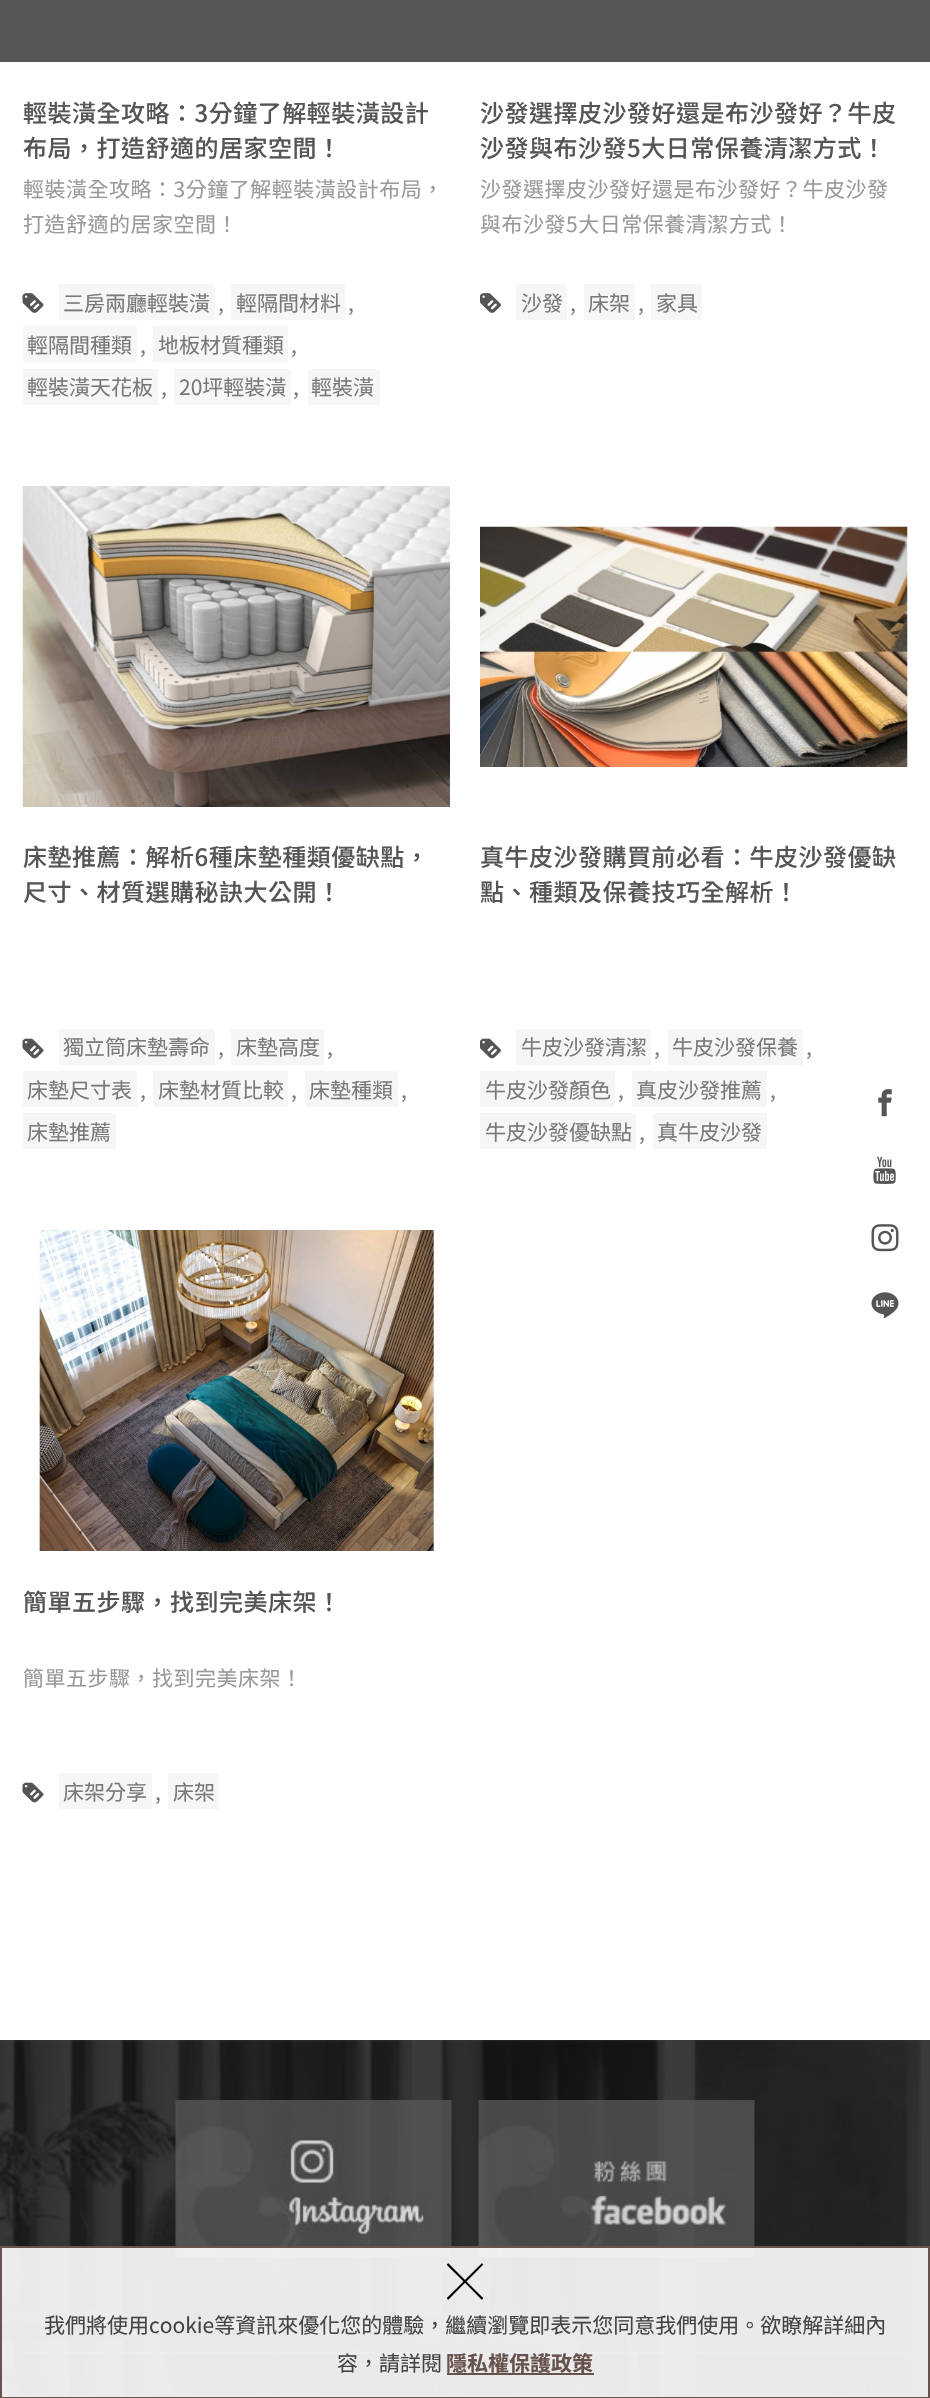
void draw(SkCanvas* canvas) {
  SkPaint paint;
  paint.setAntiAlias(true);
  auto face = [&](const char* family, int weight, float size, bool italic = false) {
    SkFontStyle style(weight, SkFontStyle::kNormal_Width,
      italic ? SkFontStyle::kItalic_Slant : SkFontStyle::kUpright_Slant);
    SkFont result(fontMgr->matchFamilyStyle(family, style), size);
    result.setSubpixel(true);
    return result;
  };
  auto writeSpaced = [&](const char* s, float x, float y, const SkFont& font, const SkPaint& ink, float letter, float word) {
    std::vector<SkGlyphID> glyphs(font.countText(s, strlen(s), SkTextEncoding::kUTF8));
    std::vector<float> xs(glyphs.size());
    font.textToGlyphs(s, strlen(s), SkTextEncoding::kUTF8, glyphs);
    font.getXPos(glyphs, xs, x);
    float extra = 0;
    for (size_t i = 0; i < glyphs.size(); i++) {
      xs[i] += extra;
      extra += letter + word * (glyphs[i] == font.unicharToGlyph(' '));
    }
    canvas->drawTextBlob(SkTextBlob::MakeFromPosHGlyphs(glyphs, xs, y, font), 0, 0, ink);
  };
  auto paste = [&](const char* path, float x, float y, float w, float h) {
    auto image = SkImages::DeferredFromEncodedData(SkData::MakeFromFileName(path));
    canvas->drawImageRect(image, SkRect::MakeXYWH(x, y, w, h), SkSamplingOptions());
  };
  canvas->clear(0xffffffff);
  paint.setColor(0xff555555);
  canvas->drawRect(SkRect::MakeXYWH(0, 60, 930, 2), paint);
  canvas->drawRect(SkRect::MakeXYWH(0, 0, 930, 60), paint);
  paste("img/1.png", 22, 293, 22, 20);
  {
    const struct { float x, y, w, h; SkColor color; } items[] = {
      {59, 284, 156, 36, 0xfff6f6f6},
      {231, 284, 114, 36, 0xfff6f6f6},
      {23, 326, 114, 36, 0xfff6f6f6},
      {153, 326, 135, 36, 0xfff6f6f6},
      {23, 369, 135, 36, 0xfff6f6f6},
      {174, 369, 117, 36, 0xfff6f6f6},
      {308, 369, 72, 36, 0xfff6f6f6},
    };
    for (auto [x, y, w, h, color] : items) {
      paint.setColor(color);
      canvas->drawRect(SkRect::MakeXYWH(x, y, w, h), paint);
    }
  }
  paste("img/2.png", 480, 293, 21, 20);
  {
    const struct { float x, y, w, h; SkColor color; } items[] = {
      {516, 284, 51, 36, 0xfff6f6f6},
      {584, 284, 51, 36, 0xfff6f6f6},
      {651, 284, 51, 36, 0xfff6f6f6},
    };
    for (auto [x, y, w, h, color] : items) {
      paint.setColor(color);
      canvas->drawRect(SkRect::MakeXYWH(x, y, w, h), paint);
    }
  }
  paste("img/3.png", 22, 486, 428, 321);
  {
    const struct { float x, y, w, h; SkColor color; } items[] = {
      {59, 1029, 156, 36, 0xfff6f6f6},
      {231, 1029, 93, 36, 0xfff6f6f6},
      {23, 1071, 114, 36, 0xfff6f6f6},
      {153, 1071, 135, 36, 0xfff6f6f6},
      {305, 1071, 93, 36, 0xfff6f6f6},
      {23, 1113, 93, 36, 0xfff6f6f6},
    };
    for (auto [x, y, w, h, color] : items) {
      paint.setColor(color);
      canvas->drawRect(SkRect::MakeXYWH(x, y, w, h), paint);
    }
  }
  paste("img/4.png", 22, 1038, 22, 21);
  paste("img/5.png", 480, 525, 428, 243);
  {
    const struct { float x, y, w, h; SkColor color; } items[] = {
      {516, 1029, 135, 36, 0xfff6f6f6},
      {668, 1029, 135, 36, 0xfff6f6f6},
      {480, 1071, 135, 36, 0xfff6f6f6},
      {632, 1071, 135, 36, 0xfff6f6f6},
      {480, 1113, 156, 36, 0xfff6f6f6},
      {653, 1113, 114, 36, 0xfff6f6f6},
    };
    for (auto [x, y, w, h, color] : items) {
      paint.setColor(color);
      canvas->drawRect(SkRect::MakeXYWH(x, y, w, h), paint);
    }
  }
  paste("img/6.png", 480, 1038, 21, 21);
  paste("img/7.png", 39, 1230, 396, 321);
  paste("img/4.png", 22, 1782, 22, 21);
  canvas->drawRect(SkRect::MakeXYWH(59, 1773, 93, 36), paint);
  canvas->drawRect(SkRect::MakeXYWH(168, 1773, 51, 36), paint);
  paste("img/8.png", 0, 2040, 930, 357);
  paste("img/9.png", 878, 1089, 14, 28);
  paste("img/10.png", 873, 1156, 23, 28);
  paste("img/11.png", 871, 1224, 28, 28);
  paste("img/12.png", 871, 1292, 28, 26);
  paste("img/13.png", 175, 2100, 277, 158);
  paste("img/14.png", 478, 2100, 277, 158);
  paint.setColor(0x33a3a3a3);
  canvas->drawRect(SkRect::MakeXYWH(23, 2352, 885, 2), paint);
  paint.setColor(0xe6ffffff);
  canvas->drawRect(SkRect::MakeXYWH(1, 2247, 928, 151), paint);
  paint.setStroke(true);
  paint.setStrokeWidth(2);
  paint.setColor(0xff67524e);
  canvas->drawRect(SkRect::MakeXYWH(1, 2247, 928, 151), paint);
  paint.setStroke(false);
  canvas->drawRect(SkRect::MakeXYWH(447, 2373, 147, 2), paint);
  auto f0 = face("Noto Sans TC", 500, 24);
  paint.setColor(0xff555555);
  writeSpaced("輕裝潢全攻略：3分鐘了解輕裝潢設計", 23, 122, f0, paint, 0.5f, 0);
  writeSpaced("布局，打造舒適的居家空間！", 23, 157, f0, paint, 0.5f, 0);
  auto f1 = face("Noto Sans TC", 400, 21);
  paint.setColor(0xff999999);
  writeSpaced("輕裝潢全攻略：3分鐘了解輕裝潢設計布局，", 23, 197, f1, paint, 0.5f, 0);
  writeSpaced("打造舒適的居家空間！", 23, 232, f1, paint, 0.5f, 0);
  paint.setColor(0xff797979);
  {
    const struct { const char* s; float x, y; } items[] = {
      {"三房兩廳輕裝潢", 63, 311},
      {",", 218, 311},
      {"輕隔間材料", 236, 311},
      {",", 348, 311},
      {"輕隔間種類", 27, 353},
      {",", 140, 353},
      {"地板材質種類", 158, 353},
      {",", 291, 353},
      {"輕裝潢天花板", 27, 395},
      {",", 161, 395},
      {"20坪輕裝潢", 179, 395},
      {",", 293, 395},
      {"輕裝潢", 311, 395},
    };
    for (auto [s, x, y] : items) {
      canvas->drawString(s, x, y, f1, paint);
    }
  }
  paint.setColor(0xff555555);
  writeSpaced("沙發選擇皮沙發好還是布沙發好？牛皮", 480, 122, f0, paint, 0.5f, 0);
  writeSpaced("沙發與布沙發5大日常保養清潔方式！", 480, 157, f0, paint, 0.5f, 0);
  paint.setColor(0xff999999);
  writeSpaced("沙發選擇皮沙發好還是布沙發好？牛皮沙發", 480, 197, f1, paint, 0.5f, 0);
  writeSpaced("與布沙發5大日常保養清潔方式！", 480, 232, f1, paint, 0.5f, 0);
  paint.setColor(0xff797979);
  {
    const struct { const char* s; float x, y; } items[] = {
      {"沙發", 521, 311},
      {",", 570, 311},
      {"床架", 588, 311},
      {",", 638, 311},
      {"家具", 656, 311},
    };
    for (auto [s, x, y] : items) {
      canvas->drawString(s, x, y, f1, paint);
    }
  }
  paint.setColor(0xff555555);
  writeSpaced("床墊推薦：解析6種床墊種類優缺點，", 23, 866, f0, paint, 0.5f, 0);
  writeSpaced("尺寸、材質選購秘訣大公開！", 23, 901, f0, paint, 0.5f, 0);
  paint.setColor(0xff797979);
  {
    const struct { const char* s; float x, y; } items[] = {
      {"獨立筒床墊壽命", 63, 1055},
      {",", 218, 1055},
      {"床墊高度", 236, 1055},
      {",", 327, 1055},
      {"床墊尺寸表", 27, 1098},
      {",", 140, 1098},
      {"床墊材質比較", 158, 1098},
      {",", 291, 1098},
      {"床墊種類", 309, 1098},
      {",", 401, 1098},
      {"床墊推薦", 27, 1140},
    };
    for (auto [s, x, y] : items) {
      canvas->drawString(s, x, y, f1, paint);
    }
  }
  paint.setColor(0xff555555);
  writeSpaced("真牛皮沙發購買前必看：牛皮沙發優缺", 480, 866, f0, paint, 0.5f, 0);
  writeSpaced("點、種類及保養技巧全解析！", 480, 901, f0, paint, 0.5f, 0);
  paint.setColor(0xff797979);
  {
    const struct { const char* s; float x, y; } items[] = {
      {"牛皮沙發清潔", 521, 1055},
      {",", 654, 1055},
      {"牛皮沙發保養", 672, 1055},
      {",", 806, 1055},
      {"牛皮沙發顏色", 485, 1098},
      {",", 618, 1098},
      {"真皮沙發推薦", 636, 1098},
      {",", 770, 1098},
      {"牛皮沙發優缺點", 485, 1140},
      {",", 639, 1140},
      {"真牛皮沙發", 657, 1140},
    };
    for (auto [s, x, y] : items) {
      canvas->drawString(s, x, y, f1, paint);
    }
  }
  paint.setColor(0xff555555);
  writeSpaced("簡單五步驟，找到完美床架！", 23, 1611, f0, paint, 0.5f, 0);
  paint.setColor(0xff999999);
  writeSpaced("簡單五步驟，找到完美床架！", 23, 1686, f1, paint, 0.5f, 0);
  paint.setColor(0xff797979);
  {
    const struct { const char* s; float x, y; } items[] = {
      {"床架分享", 63, 1800},
      {",", 155, 1800},
      {"床架", 173, 1800},
    };
    for (auto [s, x, y] : items) {
      canvas->drawString(s, x, y, f1, paint);
    }
  }
  auto f2 = face("Noto Sans TC", 100, 58);
  paint.setColor(0xff000000);
  canvas->drawString("×", 436, 2303, f2, paint);
  paint.setColor(0xff444444);
  canvas->drawString("我們將使用cookie等資訊來優化您的體驗，繼續瀏覽即表示您同意我們使用。欲瞭解詳細內", 44, 2333, f1, paint);
  canvas->drawString("容，請詳閱", 337, 2371, f1, paint);
  auto f3 = face("Noto Sans TC", 700, 21);
  paint.setColor(0xff67524e);
  canvas->drawString("隱私權保護政策", 446, 2371, f3, paint);
}
